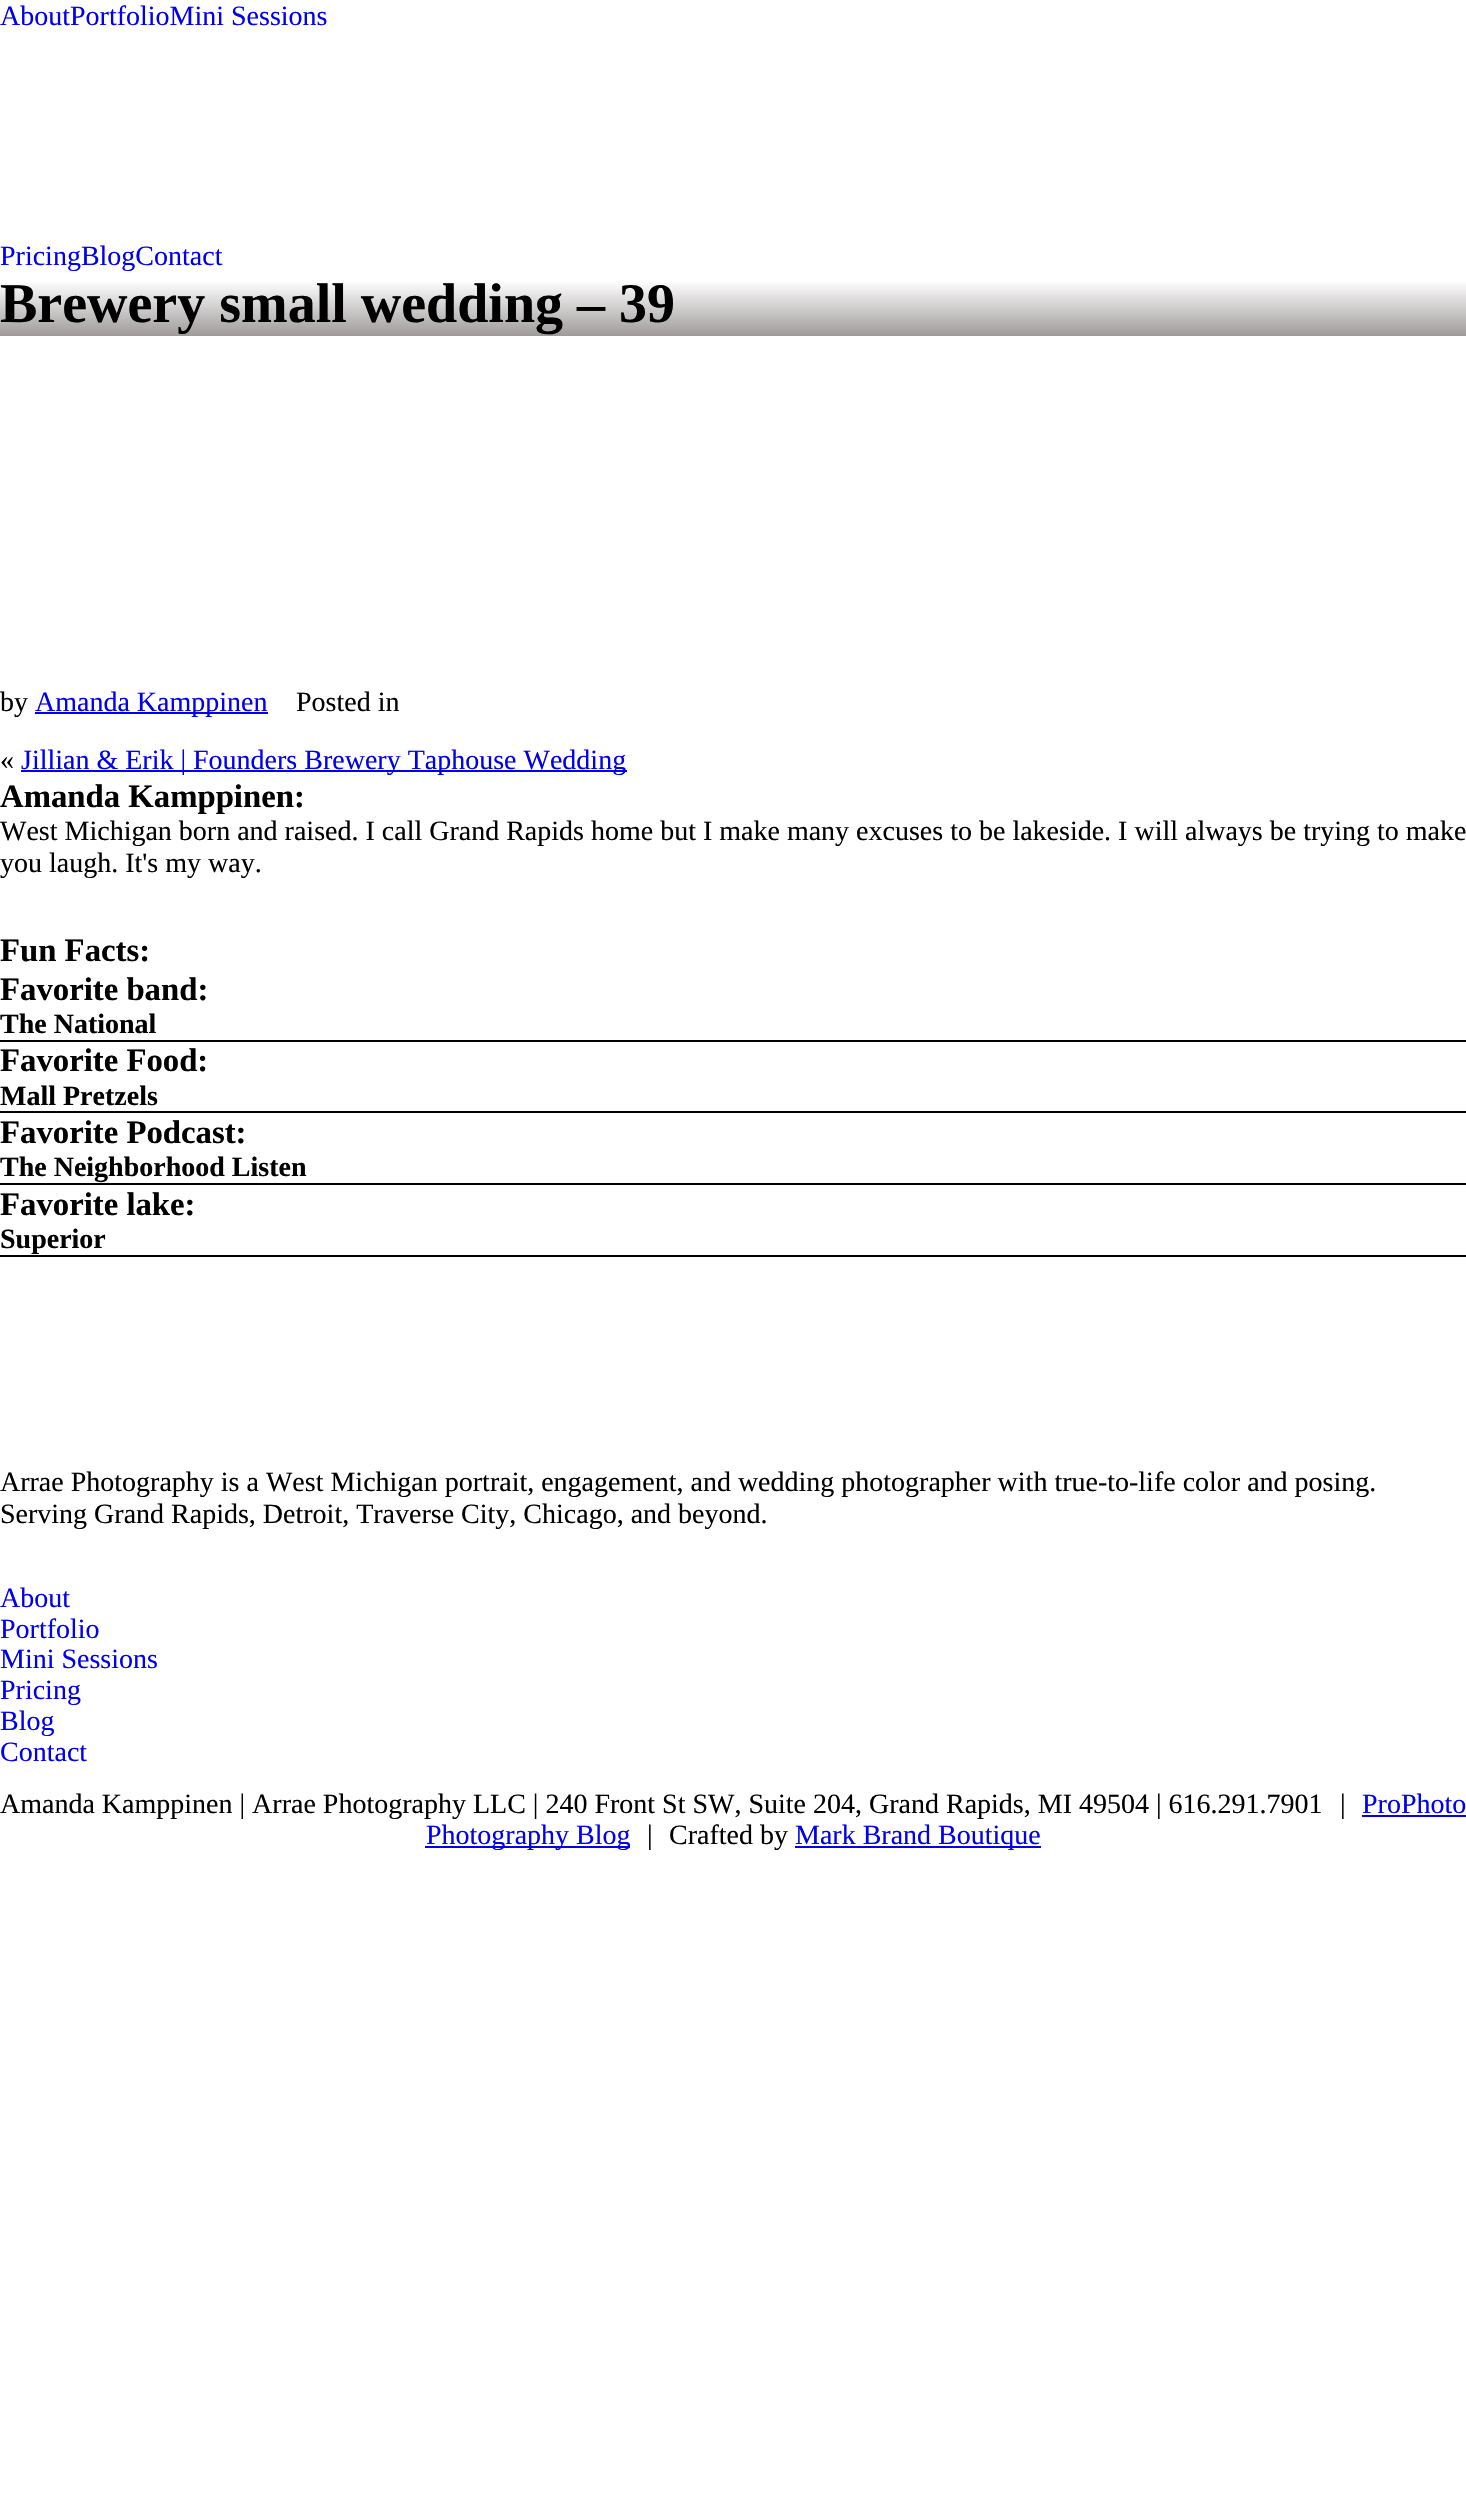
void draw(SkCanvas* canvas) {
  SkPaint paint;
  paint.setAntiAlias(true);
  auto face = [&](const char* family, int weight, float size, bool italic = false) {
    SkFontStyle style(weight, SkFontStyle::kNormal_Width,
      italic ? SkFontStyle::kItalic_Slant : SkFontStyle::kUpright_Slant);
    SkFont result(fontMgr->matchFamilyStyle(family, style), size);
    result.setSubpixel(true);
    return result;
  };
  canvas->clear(0xffffffff);
  {
    const SkColor colors[] = {0xffffffff, 0xff9e9a9a};
    const float stops[] = {0.15f, 1};
    const SkPoint ends[] = {{733, 271}, {733, 336}};
    paint.setShader(SkGradientShader::MakeLinear(ends, colors, stops, 2, SkTileMode::kClamp));
    paint.setAlpha(255);
  }
  canvas->drawRect(SkRect::MakeXYWH(0, 282, 1466, 54), paint);
  paint.setShader(nullptr);
  {
    const struct { float x, y, w, h; SkColor color; } items[] = {
      {35, 712, 233, 2, 0xff0000ee},
      {21, 770, 606, 2, 0xff0000ee},
      {0, 1040, 1466, 2, 0xff000000},
      {0, 1111, 1466, 2, 0xff000000},
      {0, 1183, 1466, 2, 0xff000000},
      {0, 1255, 1466, 2, 0xff000000},
      {1362, 1815, 104, 2, 0xff0000ee},
      {425, 1846, 205, 2, 0xff0000ee},
      {795, 1846, 246, 2, 0xff0000ee},
    };
    for (auto [x, y, w, h, color] : items) {
      paint.setColor(color);
      canvas->drawRect(SkRect::MakeXYWH(x, y, w, h), paint);
    }
  }
  auto f0 = face("Liberation Serif", 400, 28);
  canvas->drawString("AboutPortfolioMini Sessions", 0, 25, f0, paint);
  canvas->drawString("PricingBlogContact", 0, 265, f0, paint);
  auto f1 = face("Liberation Serif", 700, 56);
  paint.setColor(0xff000000);
  canvas->drawString("Brewery small wedding – 39", 0, 322, f1, paint);
  canvas->drawString("by", 0, 711, f0, paint);
  paint.setColor(0xff0000ee);
  canvas->drawString("Amanda Kamppinen", 35, 711, f0, paint);
  paint.setColor(0xff000000);
  canvas->drawString("Posted in", 296, 711, f0, paint);
  canvas->drawString("«", 0, 769, f0, paint);
  paint.setColor(0xff0000ee);
  canvas->drawString("Jillian & Erik | Founders Brewery Taphouse Wedding", 21, 769, f0, paint);
  auto f2 = face("Liberation Serif", 700, 32.75f);
  paint.setColor(0xff000000);
  canvas->drawString("Amanda Kamppinen:", 0, 807, f2, paint);
  canvas->drawString("West Michigan born and raised. I call Grand Rapids home but I make many excuses to be lakeside. I will always be trying to make", 0, 840, f0, paint);
  canvas->drawString("you laugh. It's my way.", 0, 872, f0, paint);
  canvas->drawString("Fun Facts:", 0, 961, f2, paint);
  canvas->drawString("Favorite band:", 0, 1000, f2, paint);
  auto f3 = face("Liberation Serif", 700, 28);
  canvas->drawString("The National", 0, 1033, f3, paint);
  canvas->drawString("Favorite Food:", 0, 1071, f2, paint);
  canvas->drawString("Mall Pretzels", 0, 1105, f3, paint);
  canvas->drawString("Favorite Podcast:", 0, 1143, f2, paint);
  canvas->drawString("The Neighborhood Listen", 0, 1176, f3, paint);
  canvas->drawString("Favorite lake:", 0, 1215, f2, paint);
  canvas->drawString("Superior", 0, 1248, f3, paint);
  canvas->drawString("Arrae Photography is a West Michigan portrait, engagement, and wedding photographer with true-to-life color and posing.", 0, 1491, f0, paint);
  canvas->drawString("Serving Grand Rapids, Detroit, Traverse City, Chicago, and beyond.", 0, 1523, f0, paint);
  paint.setColor(0xff0000ee);
  {
    const struct { const char* s; float x, y; } items[] = {
      {"About", 0, 1607},
      {"Portfolio", 0, 1638},
      {"Mini Sessions", 0, 1668},
      {"Pricing", 0, 1699},
      {"Blog", 0, 1730},
      {"Contact", 0, 1761},
    };
    for (auto [s, x, y] : items) {
      canvas->drawString(s, x, y, f0, paint);
    }
  }
  paint.setColor(0xff000000);
  canvas->drawString("Amanda Kamppinen | Arrae Photography LLC | 240 Front St SW, Suite 204, Grand Rapids, MI 49504 | 616.291.7901", 0, 1813, f0, paint);
  canvas->drawString("|", 1340, 1813, f0, paint);
  paint.setColor(0xff0000ee);
  canvas->drawString("ProPhoto", 1362, 1813, f0, paint);
  canvas->drawString("Photography Blog", 426, 1844, f0, paint);
  paint.setColor(0xff000000);
  canvas->drawString("|", 647, 1844, f0, paint);
  canvas->drawString("Crafted by", 669, 1844, f0, paint);
  paint.setColor(0xff0000ee);
  canvas->drawString("Mark Brand Boutique", 795, 1844, f0, paint);
}
